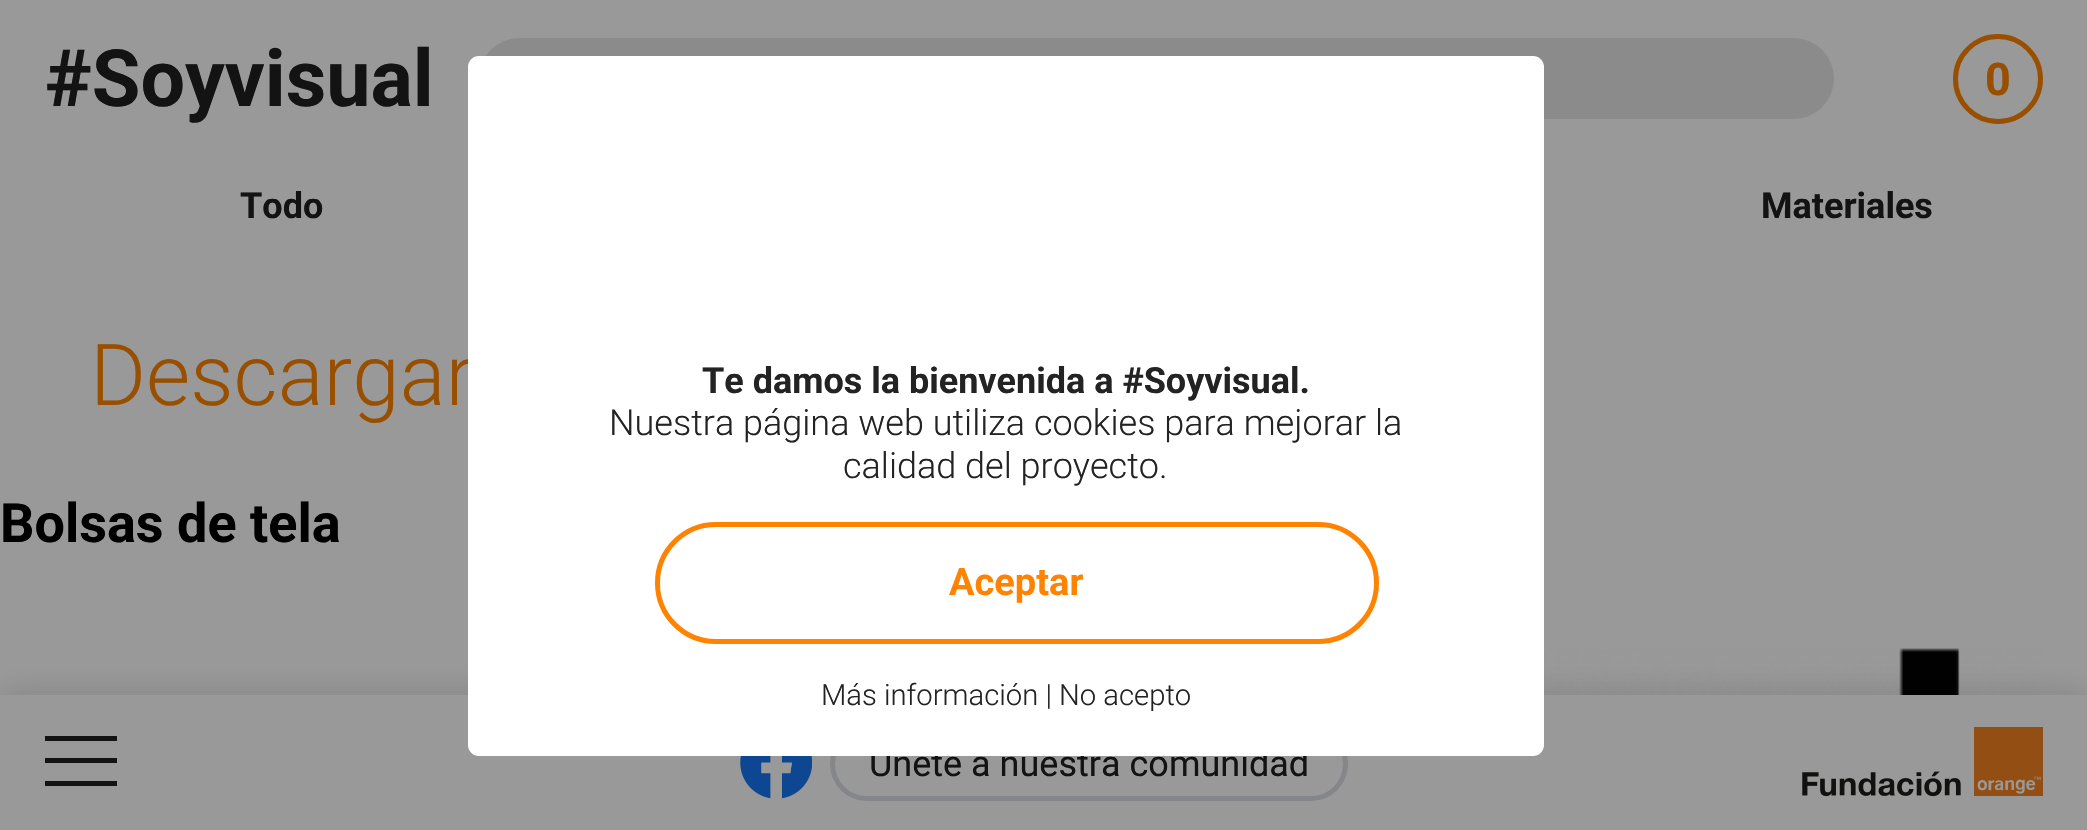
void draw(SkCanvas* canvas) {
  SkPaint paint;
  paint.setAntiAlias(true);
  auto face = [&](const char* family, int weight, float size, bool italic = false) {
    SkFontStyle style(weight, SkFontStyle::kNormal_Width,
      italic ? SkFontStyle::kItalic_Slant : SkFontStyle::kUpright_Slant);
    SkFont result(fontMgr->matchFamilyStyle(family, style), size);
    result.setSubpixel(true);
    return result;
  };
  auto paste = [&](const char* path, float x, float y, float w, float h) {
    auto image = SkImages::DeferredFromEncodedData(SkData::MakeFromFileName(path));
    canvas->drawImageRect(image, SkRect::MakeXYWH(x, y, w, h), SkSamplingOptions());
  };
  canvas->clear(0xff999999);
  paint.setStroke(true);
  paint.setStrokeWidth(5);
  paint.setColor(0xff994f00);
  canvas->drawCircle(1998, 79, 42.5f, paint);
  paint.setStroke(false);
  paint.setColor(0xff8b8b8b);
  canvas->drawRoundRect(SkRect::MakeXYWH(479, 38, 1355, 81), 40.5f, 40.5f, paint);
  paste("img/1.png", 1544, 648, 497, 47);
  paint.setColor(0x26101010);
  paint.setMaskFilter(SkMaskFilter::MakeBlur(kNormal_SkBlurStyle, 16));
  canvas->drawRect(SkRect::MakeXYWH(0, 693, 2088, 135), paint);
  paint.setMaskFilter(nullptr);
  {
    const struct { float x, y, w, h; SkColor color; } items[] = {
      {0, 695, 2087, 135, 0xff999999},
      {45, 758, 72, 5, 0xff131313},
      {45, 736, 72, 5, 0xff131313},
      {45, 781, 72, 5, 0xff131313},
    };
    for (auto [x, y, w, h, color] : items) {
      paint.setColor(color);
      canvas->drawRect(SkRect::MakeXYWH(x, y, w, h), paint);
    }
  }
  paste("img/2.png", 740, 756, 72, 43);
  paint.setStroke(true);
  paint.setColor(0xff858689);
  canvas->drawRoundRect(SkRect::MakeXYWH(832.5f, 729.5f, 513, 69), 34.5f, 34.5f, paint);
  paste("img/3.png", 1802, 727, 241, 70);
  auto f0 = face("Roboto", 700, 79);
  paint.setStroke(false);
  paint.setColor(0xff131313);
  canvas->drawString("#Soyvisual", 45, 106, f0, paint);
  auto f1 = face("Roboto", 700, 45);
  paint.setColor(0xff994f00);
  canvas->drawString("0", 1985, 95, f1, paint);
  auto f2 = face("Roboto", 700, 36);
  paint.setColor(0xff131313);
  canvas->drawString("Todo", 240, 218, f2, paint);
  canvas->drawString("Materiales", 1761, 218, f2, paint);
  auto f3 = face("Roboto", 300, 85.5f);
  paint.setColor(0xff994f00);
  canvas->drawString("Descargar", 90, 405, f3, paint);
  auto f4 = face("Roboto", 700, 54);
  paint.setColor(0xff000000);
  canvas->drawString("Bolsas de tela", 0, 542, f4, paint);
  auto f5 = face("Roboto", 400, 36);
  paint.setColor(0xff131313);
  canvas->drawString("Únete a nuestra comunidad", 869, 776, f5, paint);
  paint.setColor(0xffffffff);
  canvas->drawRoundRect(SkRect::MakeXYWH(468, 56, 1076, 700), 11, 11, paint);
  paint.setColor(0xff232323);
  canvas->drawString("Te damos la bienvenida a #Soyvisual.", 702, 393, f2, paint);
  auto f6 = face("Roboto", 300, 36);
  canvas->drawString("Nuestra página web utiliza cookies para mejorar la", 609, 435, f6, paint);
  canvas->drawString("calidad del proyecto.", 843, 478, f6, paint);
  auto f7 = face("Roboto", 300, 29.25f);
  canvas->drawString("Más información | No acepto", 821, 705, f7, paint);
  paint.setStroke(true);
  paint.setColor(0xffff8300);
  canvas->drawRoundRect(SkRect::MakeXYWH(657.5f, 524.5f, 719, 117), 58.5f, 58.5f, paint);
  auto f8 = face("Roboto", 700, 38);
  paint.setStroke(false);
  canvas->drawString("Aceptar", 949, 595, f8, paint);
}
